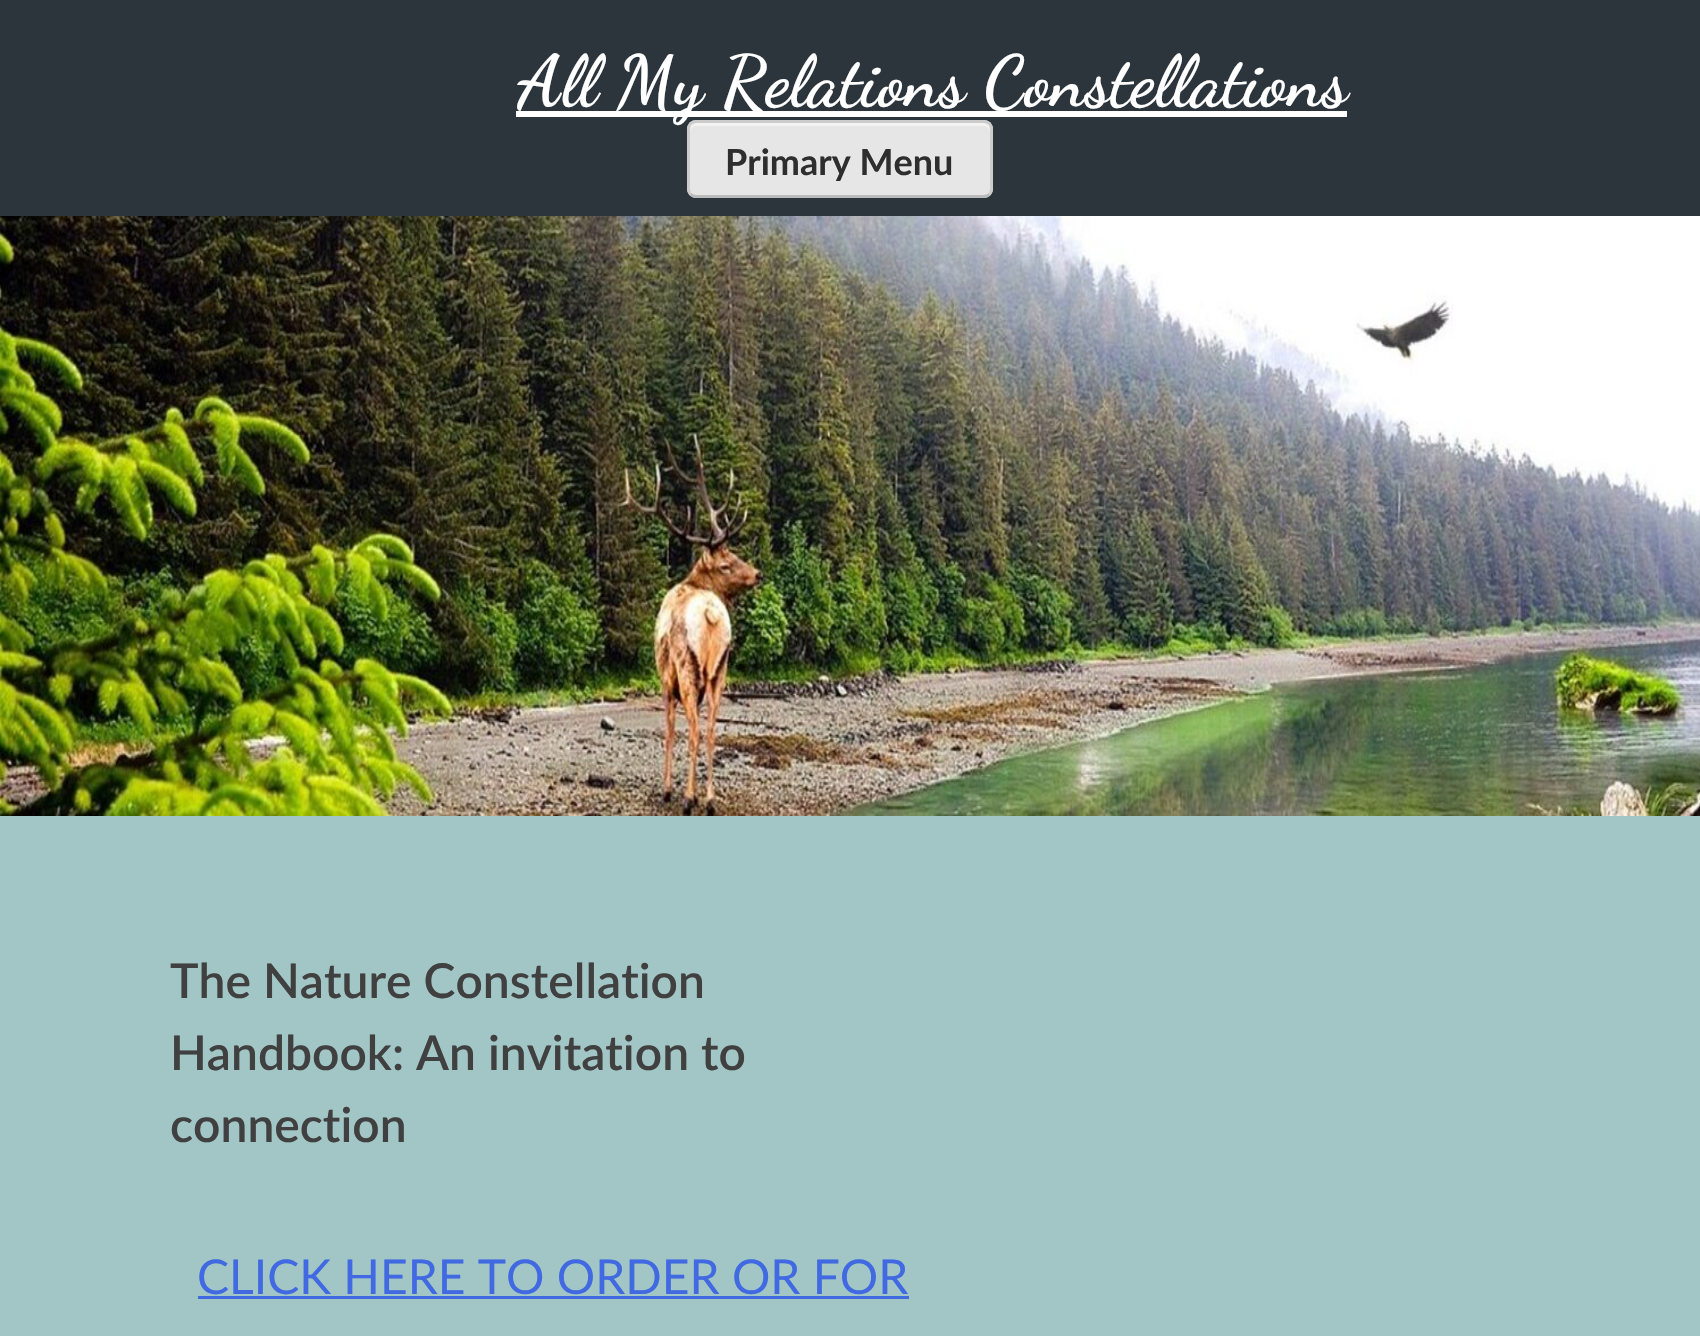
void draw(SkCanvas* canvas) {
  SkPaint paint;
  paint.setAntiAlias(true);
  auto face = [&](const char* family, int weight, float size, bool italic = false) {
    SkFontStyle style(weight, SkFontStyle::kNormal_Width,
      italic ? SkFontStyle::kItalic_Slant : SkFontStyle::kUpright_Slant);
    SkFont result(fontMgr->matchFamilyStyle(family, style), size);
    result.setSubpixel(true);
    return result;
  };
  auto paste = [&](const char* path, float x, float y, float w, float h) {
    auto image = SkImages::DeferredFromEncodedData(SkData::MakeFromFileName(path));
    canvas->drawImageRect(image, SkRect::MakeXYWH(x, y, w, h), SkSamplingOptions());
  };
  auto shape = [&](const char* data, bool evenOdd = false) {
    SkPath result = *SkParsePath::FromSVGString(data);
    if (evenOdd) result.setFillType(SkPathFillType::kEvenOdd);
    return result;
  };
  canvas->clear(0xffa1c6c5);
  paint.setColor(0xff2c353c);
  canvas->drawRect(SkRect::MakeXYWH(0, 0, 1700, 216), paint);
  paint.setColor(0xffffffff);
  canvas->drawRect(SkRect::MakeXYWH(516, 111, 831, 6), paint);
  paste("img/1.png", 0, 216, 1700, 600);
  paint.setColor(0xff4169e1);
  canvas->drawRect(SkRect::MakeXYWH(198, 1296, 711, 3), paint);
  auto f0 = face("Dancing Script", 700, 72);
  paint.setColor(0xffffffff);
  canvas->drawString("All My Relations Constellations", 517, 105, f0, paint);
  paint.setColor(0xffe6e6e6);
  canvas->drawRoundRect(SkRect::MakeXYWH(687, 120, 306, 78), 9, 9, paint);
  paint.setColor(0xfff3f3f3);
  canvas->drawPath(shape("M696 126H984C987 126 990 129 990 132V129C990 126 987 123 984 123H696C693 123 690 126 690 129V132C690 129 693 126 696 126Z"), paint);
  paint.setStroke(true);
  paint.setStrokeWidth(3);
  paint.setColor(0xffbbbbbb);
  canvas->drawPath(shape("M989.5 194.5C988 195.5 986 196.5 984 196.5H696C694 196.5 692 195.5 690.5 194.5"), paint);
  paint.setColor(0xffcccccc);
  canvas->drawPath(shape("M690.5 194.5C689.5 193 688.5 191 688.5 189V129C688.5 127 689.5 125 690.5 123.5C692 122.5 694 121.5 696 121.5H984C986 121.5 988 122.5 989.5 123.5C990.5 125 991.5 127 991.5 129V189C991.5 191 990.5 193 989.5 194.5"), paint);
  auto f1 = face("Lato", 700, 36);
  paint.setStroke(false);
  paint.setColor(0xff2e2e2e);
  canvas->drawString("Primary Menu", 725, 175, f1, paint);
  auto f2 = face("Lato", 600, 48);
  paint.setColor(0xff404040);
  {
    const struct { const char* s; float x, y; } items[] = {
      {"The Nature Constellation", 170, 998},
      {"Handbook: An invitation to", 170, 1070},
      {"connection", 170, 1142},
    };
    for (auto [s, x, y] : items) {
      canvas->drawString(s, x, y, f2, paint);
    }
  }
  auto f3 = face("Lato", 400, 48);
  paint.setColor(0xff4169e1);
  canvas->drawString("CLICK HERE TO ORDER OR FOR", 197, 1294, f3, paint);
}
